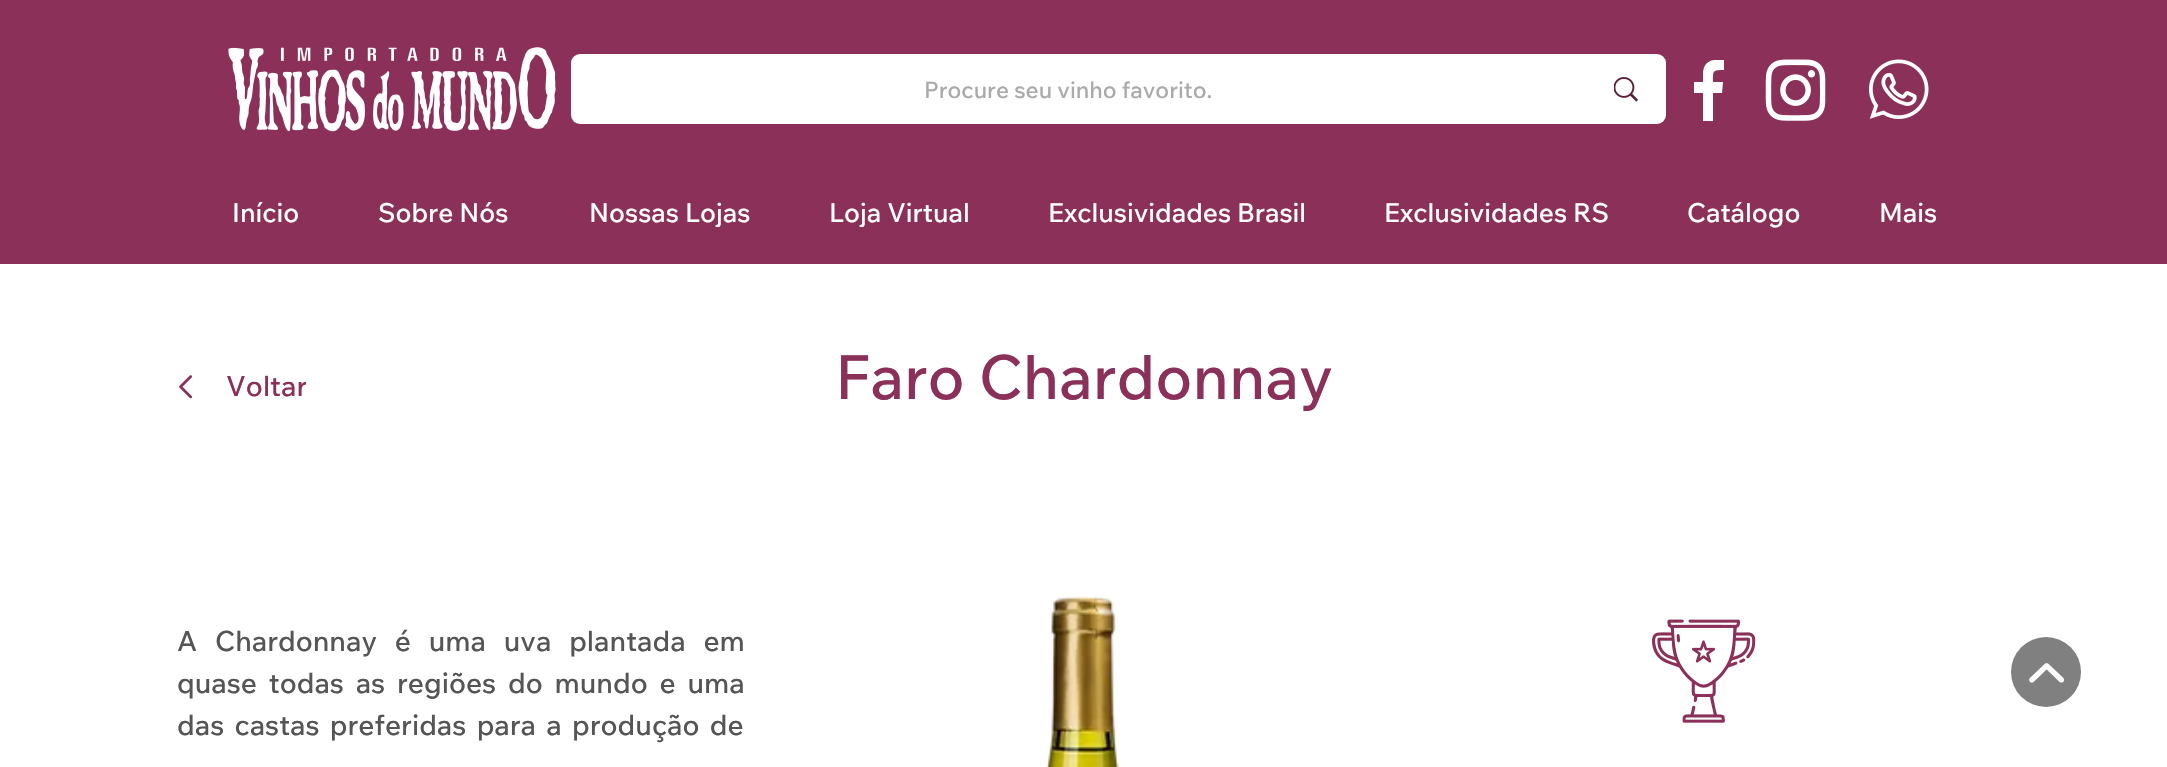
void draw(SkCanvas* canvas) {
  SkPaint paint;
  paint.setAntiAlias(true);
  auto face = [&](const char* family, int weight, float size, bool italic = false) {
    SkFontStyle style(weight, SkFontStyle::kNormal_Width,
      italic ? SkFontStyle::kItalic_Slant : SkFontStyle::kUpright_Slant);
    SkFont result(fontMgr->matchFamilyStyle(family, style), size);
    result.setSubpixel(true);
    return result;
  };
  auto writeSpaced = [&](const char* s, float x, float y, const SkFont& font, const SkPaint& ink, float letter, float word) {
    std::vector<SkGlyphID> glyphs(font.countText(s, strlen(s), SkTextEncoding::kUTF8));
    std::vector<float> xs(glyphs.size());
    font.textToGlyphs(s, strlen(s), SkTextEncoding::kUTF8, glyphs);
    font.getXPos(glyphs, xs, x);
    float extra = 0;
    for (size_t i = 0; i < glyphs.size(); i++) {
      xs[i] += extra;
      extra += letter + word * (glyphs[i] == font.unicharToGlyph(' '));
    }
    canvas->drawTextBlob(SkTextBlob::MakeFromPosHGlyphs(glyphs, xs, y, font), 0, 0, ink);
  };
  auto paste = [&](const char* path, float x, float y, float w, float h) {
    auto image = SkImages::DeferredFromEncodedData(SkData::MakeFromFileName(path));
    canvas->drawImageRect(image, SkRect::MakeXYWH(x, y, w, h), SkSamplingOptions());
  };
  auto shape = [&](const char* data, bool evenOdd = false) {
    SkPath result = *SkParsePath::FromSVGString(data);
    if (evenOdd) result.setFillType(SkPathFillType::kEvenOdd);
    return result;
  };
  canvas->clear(0xffffffff);
  paint.setColor(0xff8a3059);
  canvas->drawRect(SkRect::MakeXYWH(0, 0, 2167, 264), paint);
  paste("img/1.png", 228, 47, 328, 85);
  paint.setColor(0xffffffff);
  canvas->drawRoundRect(SkRect::MakeXYWH(571, 54, 1095, 70), 9, 9, paint);
  paste("img/2.png", 1614, 77, 24, 25);
  canvas->drawPath(shape("M1703 74V82H1694V93H1703V121H1713V93H1722L1723 82H1713C1713 71 1712 70 1724 70V60H1714C1706 61 1703 67 1703 74Z", true), paint);
  paste("img/3.png", 1765, 59, 61, 62);
  paste("img/4.png", 1869, 59, 60, 60);
  paste("img/5.png", 179, 375, 13, 24);
  paste("img/6.png", 1046, 596, 73, 171);
  paste("img/7.png", 1652, 619, 104, 104);
  paint.setColor(0xff808080);
  canvas->drawCircle(2046, 672, 35, paint);
  paste("img/8.png", 2029, 663, 36, 20);
  auto f0 = face("Wix Madefor Text", 500, 22.75f);
  paint.setColor(0xffaaaaaa);
  canvas->drawString("Procure seu vinho favorito.", 924, 98, f0, paint);
  auto f1 = face("Wix Madefor Text", 500, 26.25f);
  paint.setColor(0xffffffff);
  {
    const struct { const char* s; float x, y; } items[] = {
      {"Início", 232, 222},
      {"Sobre Nós", 378, 222},
      {"Nossas Lojas", 589, 222},
      {"Loja Virtual", 829, 222},
      {"Exclusividades Brasil", 1048, 222},
      {"Exclusividades RS", 1384, 222},
      {"Catálogo", 1687, 222},
      {"Mais", 1879, 222},
    };
    for (auto [s, x, y] : items) {
      canvas->drawString(s, x, y, f1, paint);
    }
  }
  canvas->save();
  canvas->clipRect(SkRect::MakeXYWH(226, 369, 80, 35));
  auto f2 = face("Wix Madefor Text", 500, 28);
  paint.setColor(0xff8a3059);
  canvas->drawString("Voltar", 226, 396, f2, paint);
  canvas->restore();
  auto f3 = face("Wix Madefor Text", 500, 61.25f);
  canvas->drawString("Faro Chardonnay", 835, 399, f3, paint);
  paint.setColor(0xff555555);
  writeSpaced("A Chardonnay é uma uva plantada em", 177, 651, f2, paint, 0, 11.5f);
  writeSpaced("quase todas as regiões do mundo e uma", 177, 693, f2, paint, 0, 5.5f);
  writeSpaced("das castas preferidas para a produção de", 177, 735, f2, paint, 0, 4);
}
